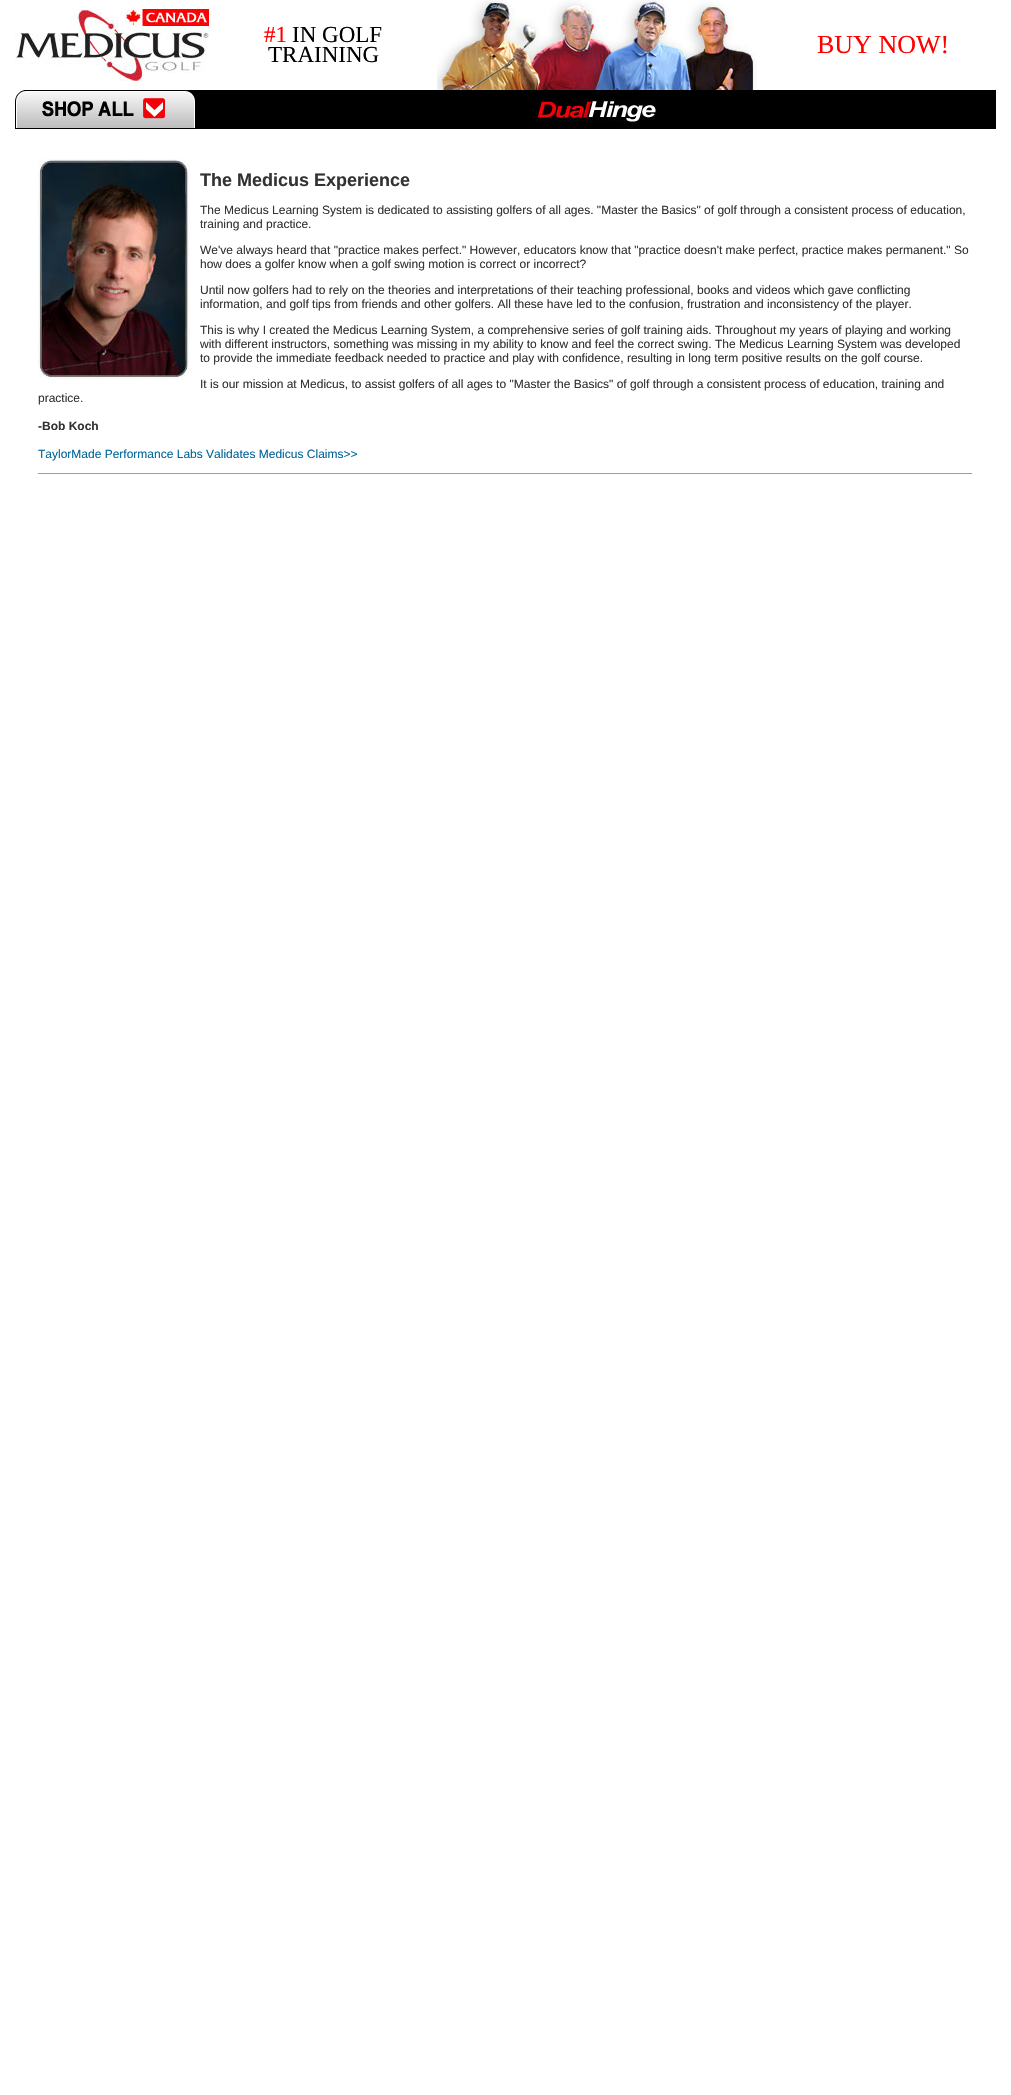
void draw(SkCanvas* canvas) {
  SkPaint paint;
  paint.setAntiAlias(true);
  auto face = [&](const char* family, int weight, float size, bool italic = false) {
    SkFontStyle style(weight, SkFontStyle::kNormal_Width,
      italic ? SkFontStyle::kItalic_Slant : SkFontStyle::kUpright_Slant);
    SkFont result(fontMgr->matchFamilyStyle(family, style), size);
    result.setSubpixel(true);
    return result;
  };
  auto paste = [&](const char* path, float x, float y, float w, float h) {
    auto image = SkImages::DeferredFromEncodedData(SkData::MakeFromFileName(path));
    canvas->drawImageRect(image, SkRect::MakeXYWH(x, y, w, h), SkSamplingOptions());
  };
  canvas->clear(0xffffffff);
  paste("img/1.png", 15, 9, 194, 72);
  paste("img/2.png", 437, 0, 320, 90);
  paste("img/3.png", 15, 90, 181, 38);
  paint.setColor(0xff000000);
  canvas->drawRect(SkRect::MakeXYWH(196, 90, 800, 38), paint);
  paste("img/4.png", 535, 98, 121, 24);
  canvas->drawRect(SkRect::MakeXYWH(15, 128, 981, 1), paint);
  paste("img/5.png", 38, 159, 152, 221);
  paint.setColor(0xff9f9f9f);
  canvas->drawRect(SkRect::MakeXYWH(38, 473, 935, 1), paint);
  paint.setColor(0xffeeeeee);
  canvas->drawRect(SkRect::MakeXYWH(972, 473, 1, 1), paint);
  auto f0 = face("Liberation Serif", 400, 23);
  paint.setColor(0xffff0000);
  canvas->drawString("#1", 264, 42, f0, paint);
  paint.setColor(0xff000000);
  canvas->drawString("IN GOLF", 292, 42, f0, paint);
  canvas->drawString("TRAINING", 268, 62, f0, paint);
  auto f1 = face("Liberation Serif", 400, 26);
  paint.setColor(0xffff0000);
  canvas->drawString("BUY NOW!", 817, 53, f1, paint);
  auto f2 = face("Liberation Sans", 700, 18);
  paint.setColor(0xff333333);
  canvas->drawString("The Medicus Experience", 200, 186, f2, paint);
  auto f3 = face("Liberation Sans", 400, 12);
  {
    const struct { const char* s; float x, y; } items[] = {
      {"The Medicus Learning System is dedicated to assisting golfers of all ages. \"Master the Basics\" of golf through a consistent process of education,", 200, 214},
      {"training and practice.", 200, 228},
      {"We've always heard that \"practice makes perfect.\" However, educators know that \"practice doesn't make perfect, practice makes permanent.\" So", 200, 254},
      {"how does a golfer know when a golf swing motion is correct or incorrect?", 200, 268},
      {"Until now golfers had to rely on the theories and interpretations of their teaching professional, books and videos which gave conflicting", 200, 294},
      {"information, and golf tips from friends and other golfers. All these have led to the confusion, frustration and inconsistency of the player.", 200, 308},
      {"This is why I created the Medicus Learning System, a comprehensive series of golf training aids. Throughout my years of playing and working", 200, 334},
      {"with different instructors, something was missing in my ability to know and feel the correct swing. The Medicus Learning System was developed", 200, 348},
      {"to provide the immediate feedback needed to practice and play with confidence, resulting in long term positive results on the golf course.", 200, 362},
      {"It is our mission at Medicus, to assist golfers of all ages to \"Master the Basics\" of golf through a consistent process of education, training and", 200, 388},
      {"practice.", 38, 402},
    };
    for (auto [s, x, y] : items) {
      canvas->drawString(s, x, y, f3, paint);
    }
  }
  auto f4 = face("Liberation Sans", 700, 12);
  canvas->drawString("-Bob Koch", 38, 430, f4, paint);
  paint.setColor(0xff006699);
  canvas->drawString("TaylorMade Performance Labs Validates Medicus Claims>>", 38, 458, f3, paint);
}
